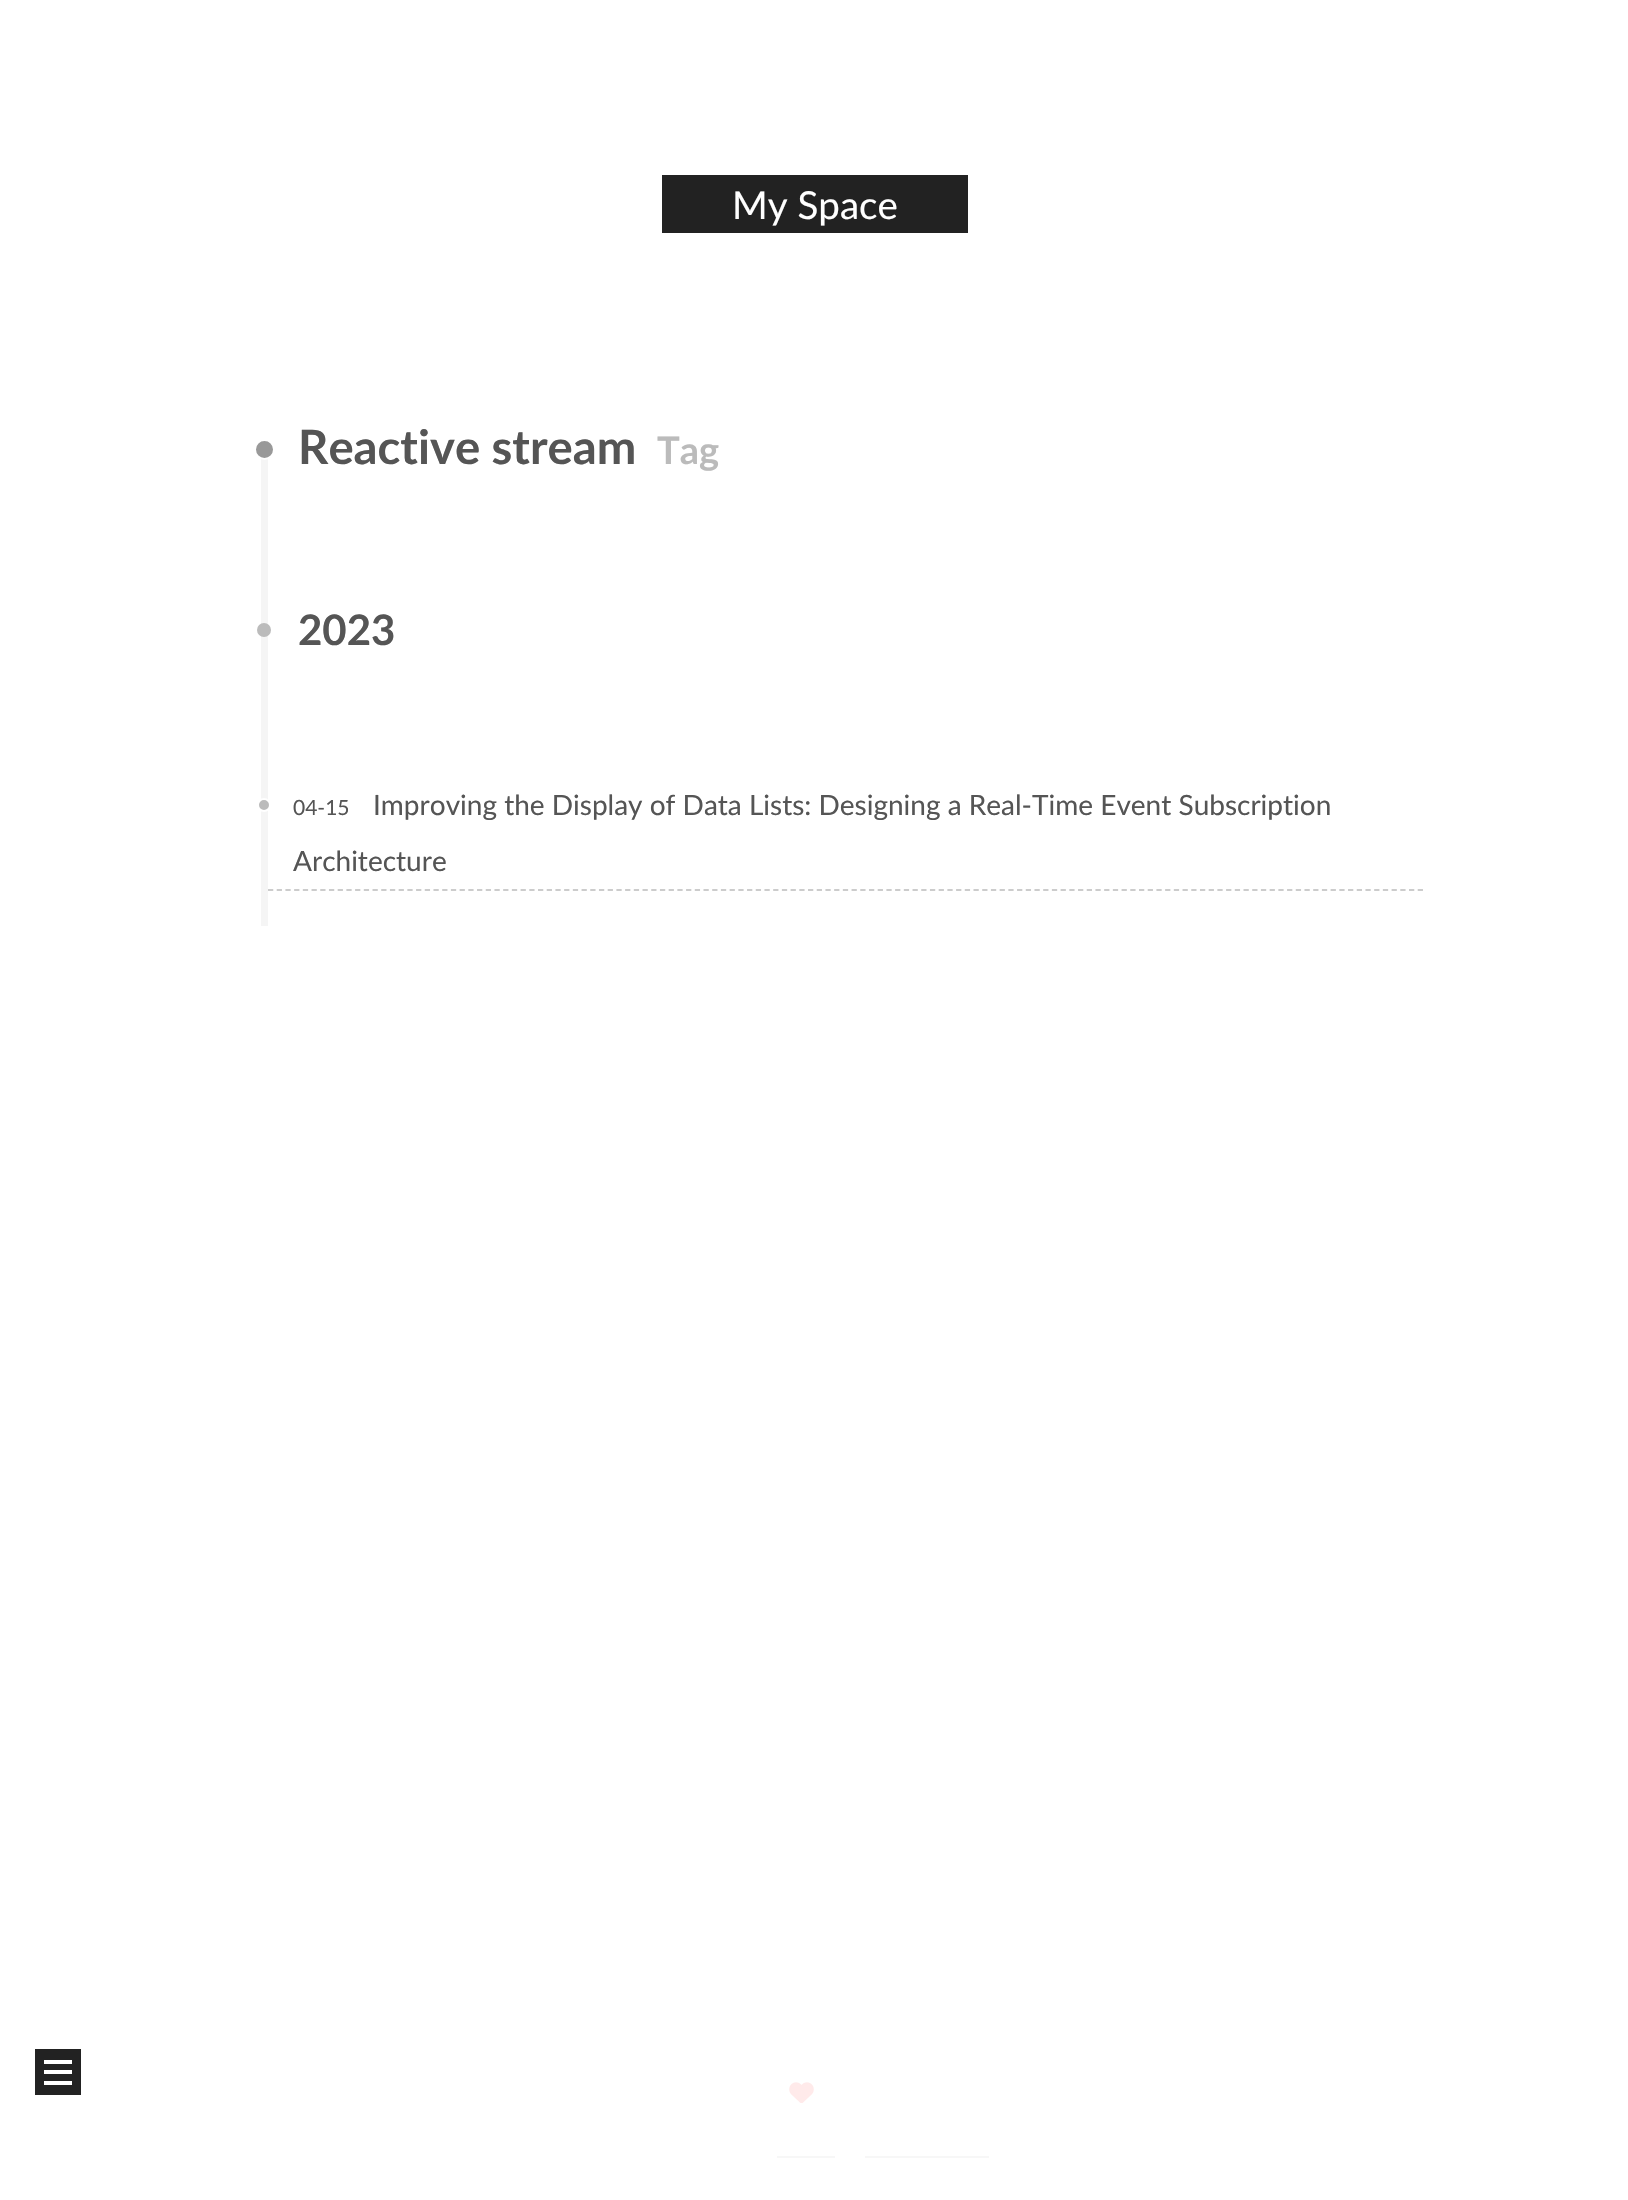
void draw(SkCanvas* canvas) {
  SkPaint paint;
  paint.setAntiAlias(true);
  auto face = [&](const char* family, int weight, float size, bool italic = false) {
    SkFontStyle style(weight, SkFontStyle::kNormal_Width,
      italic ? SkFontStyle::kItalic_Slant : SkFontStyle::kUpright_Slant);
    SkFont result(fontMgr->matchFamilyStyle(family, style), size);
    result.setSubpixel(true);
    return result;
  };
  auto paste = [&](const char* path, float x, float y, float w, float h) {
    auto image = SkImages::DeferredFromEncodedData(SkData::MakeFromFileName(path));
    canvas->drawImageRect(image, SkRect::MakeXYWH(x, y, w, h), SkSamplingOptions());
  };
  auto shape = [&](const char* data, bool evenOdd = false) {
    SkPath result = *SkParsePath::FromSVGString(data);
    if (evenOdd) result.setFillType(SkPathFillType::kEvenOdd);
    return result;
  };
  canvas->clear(0xffffffff);
  paint.setColor(0xff222222);
  canvas->drawRect(SkRect::MakeXYWH(662, 175, 306, 58), paint);
  paint.setColor(0xfff5f5f5);
  canvas->drawRect(SkRect::MakeXYWH(261, 459, 7, 467), paint);
  paint.setColor(0xff999999);
  canvas->drawCircle(264.5f, 449.5f, 9.5f, paint);
  paint.setStroke(true);
  paint.setStrokeWidth(2);
  paint.setColor(0xffffffff);
  canvas->drawCircle(264.5f, 449.5f, 9.5f, paint);
  paint.setStroke(false);
  paint.setColor(0xffbbbbbb);
  canvas->drawCircle(264, 630, 7, paint);
  paint.setStroke(true);
  paint.setStrokeWidth(1.8f);
  paint.setColor(0xffcccccc);
  paint.setPathEffect(SkDashPathEffect::Make({{5.25f, 3.46f}}, 0));
  canvas->drawPath(shape("M268 890H1424.5"), paint);
  paint.setPathEffect(nullptr);
  paint.setStroke(false);
  paint.setColor(0xffbbbbbb);
  canvas->drawCircle(264, 805, 6, paint);
  paint.setStroke(true);
  paint.setStrokeWidth(2);
  paint.setColor(0xffffffff);
  canvas->drawCircle(264, 805, 6, paint);
  paint.setStroke(false);
  {
    const struct { float x, y, w, h; SkColor color; } items[] = {
      {35, 2049, 46, 46, 0xff222222},
      {44, 2060, 28, 4, 0xffffffff},
      {44, 2070, 28, 4, 0xffffffff},
      {44, 2081, 28, 4, 0xffffffff},
    };
    for (auto [x, y, w, h, color] : items) {
      paint.setColor(color);
      canvas->drawRect(SkRect::MakeXYWH(x, y, w, h), paint);
    }
  }
  paste("img/1.png", 789, 2082, 25, 21);
  paint.setColor(0xfff7f7f7);
  canvas->drawRect(SkRect::MakeXYWH(777, 2156, 58, 2), paint);
  canvas->drawRect(SkRect::MakeXYWH(865, 2156, 124, 2), paint);
  auto f0 = face("Lato", 400, 38.5f);
  paint.setColor(0xffffffff);
  canvas->drawString("My Space", 732, 219, f0, paint);
  auto f1 = face("Lato", 700, 47.25f);
  paint.setColor(0xff555555);
  canvas->drawString("Reactive stream", 298, 464, f1, paint);
  auto f2 = face("Lato", 700, 38);
  paint.setColor(0xffbbbbbb);
  canvas->drawString("Tag", 657, 464, f2, paint);
  auto f3 = face("Lato", 700, 42);
  paint.setColor(0xff555555);
  canvas->drawString("2023", 298, 645, f3, paint);
  auto f4 = face("Lato", 400, 21);
  canvas->drawString("04-15", 293, 815, f4, paint);
  auto f5 = face("Lato", 400, 28);
  canvas->drawString("Improving the Display of Data Lists: Designing a Real-Time Event Subscription", 373, 815, f5, paint);
  canvas->drawString("Architecture", 293, 871, f5, paint);
}
